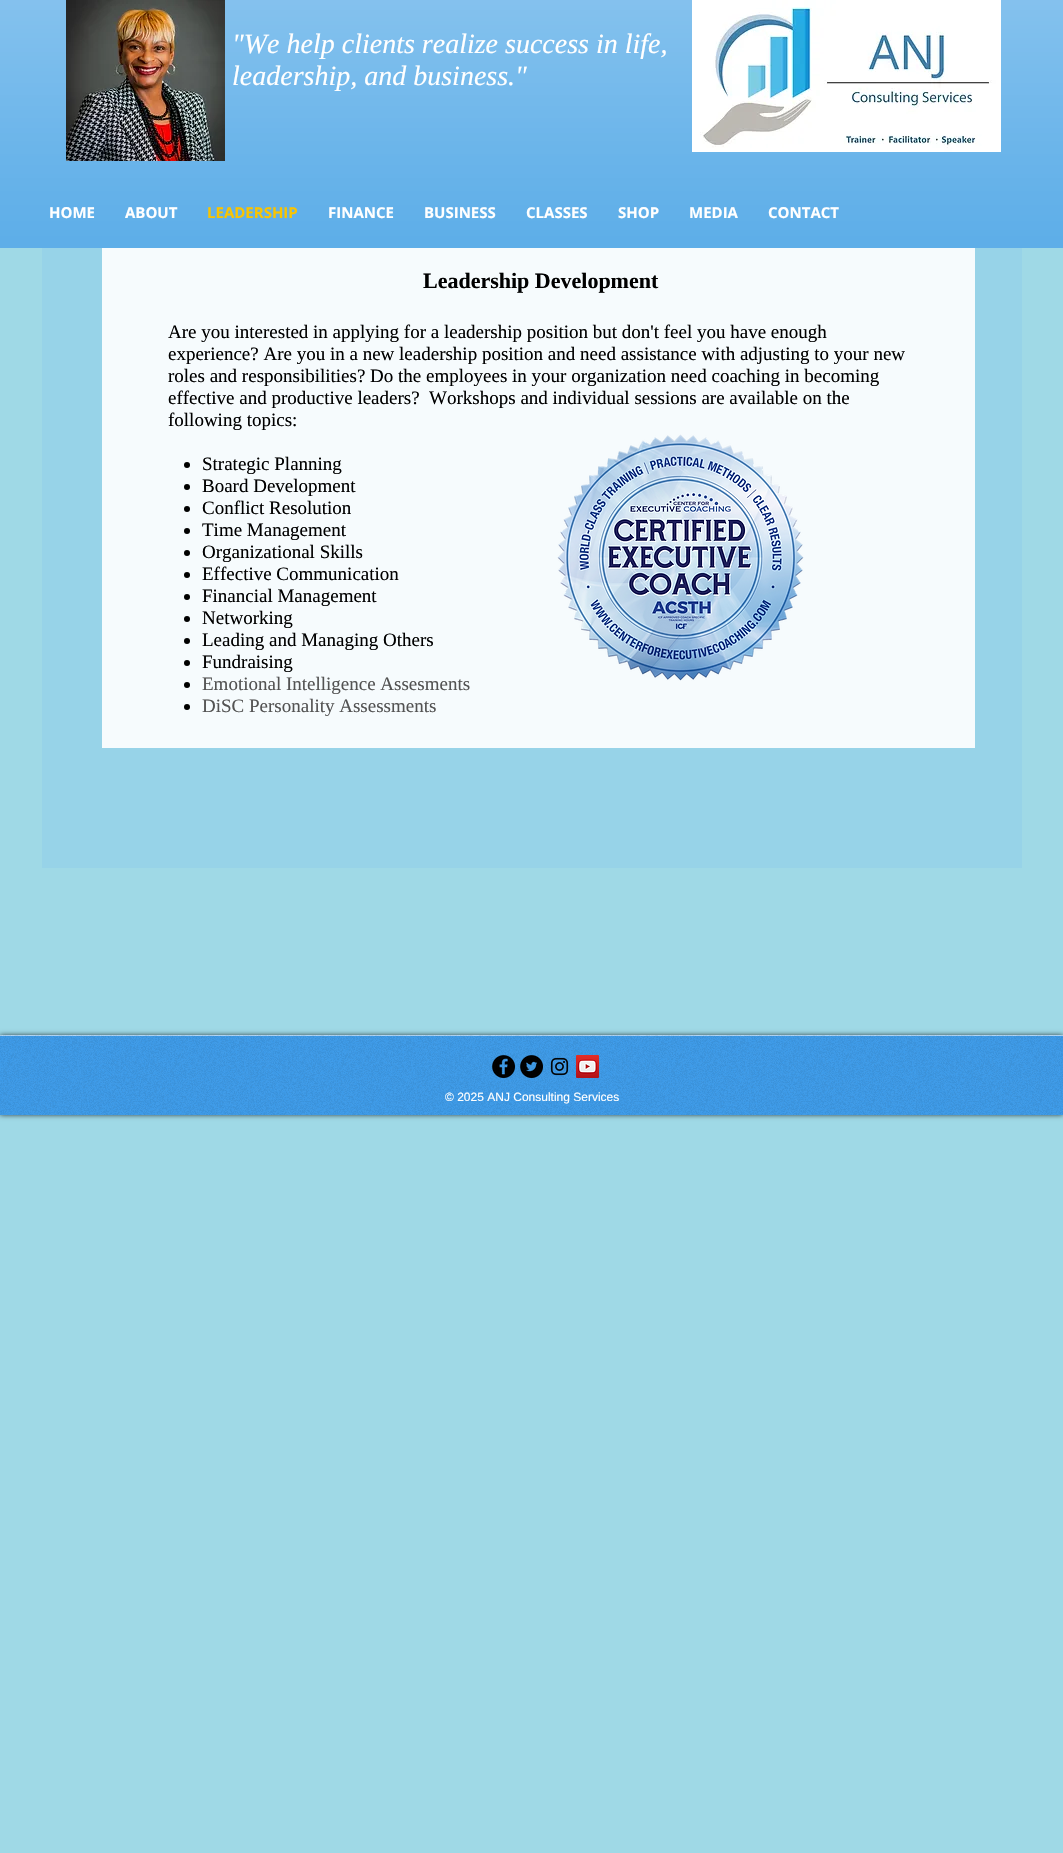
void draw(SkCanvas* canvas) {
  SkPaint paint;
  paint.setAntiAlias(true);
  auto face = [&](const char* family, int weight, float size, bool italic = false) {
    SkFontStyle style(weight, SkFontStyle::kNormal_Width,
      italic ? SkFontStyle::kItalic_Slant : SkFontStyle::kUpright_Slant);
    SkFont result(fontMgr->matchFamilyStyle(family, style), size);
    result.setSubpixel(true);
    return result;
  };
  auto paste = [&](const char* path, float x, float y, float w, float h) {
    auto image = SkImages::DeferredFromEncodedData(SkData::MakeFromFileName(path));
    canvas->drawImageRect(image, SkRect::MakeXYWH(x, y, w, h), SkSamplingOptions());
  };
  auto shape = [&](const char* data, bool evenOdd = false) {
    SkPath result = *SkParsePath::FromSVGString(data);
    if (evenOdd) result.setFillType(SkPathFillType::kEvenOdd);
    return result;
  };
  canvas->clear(0xff9fd9e6);
  paint.setColor(0xff59ace8);
  canvas->drawRect(SkRect::MakeXYWH(0, 0, 1063, 248), paint);
  paste("img/1.png", 0, 0, 1063, 248);
  paste("img/2.png", 66, 0, 159, 161);
  paste("img/3.png", 692, 0, 309, 152);
  paint.setColor(0xff97d3e8);
  canvas->drawRect(SkRect::MakeXYWH(42, 248, 980, 620), paint);
  paint.setColor(0xfff6fbfd);
  canvas->drawRect(SkRect::MakeXYWH(102, 248, 873, 500), paint);
  paint.setColor(0xff000000);
  canvas->drawCircle(187, 465, 3, paint);
  canvas->drawCircle(187, 487, 3, paint);
  canvas->drawCircle(187, 509, 3, paint);
  canvas->drawCircle(187, 531, 3, paint);
  canvas->drawCircle(187, 553, 3, paint);
  canvas->drawCircle(187, 575, 3, paint);
  canvas->drawCircle(187, 597, 3, paint);
  canvas->drawCircle(187, 619, 3, paint);
  canvas->drawCircle(187, 641, 3, paint);
  canvas->drawCircle(187, 663, 3, paint);
  canvas->drawCircle(187, 685, 3, paint);
  canvas->drawCircle(187, 707, 3, paint);
  paste("img/4.png", 557, 434, 247, 247);
  paint.setColor(0xff3d9be9);
  canvas->drawRect(SkRect::MakeXYWH(0, 1036, 1063, 79), paint);
  paint.setColor(0xffb0d6f6);
  canvas->drawRect(SkRect::MakeXYWH(0, 1035, 1063, 1), paint);
  canvas->save();
  canvas->clipPath(shape("M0 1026H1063V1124H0ZM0 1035H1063V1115H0Z", true), true);
  paint.setColor(0xb3000000);
  paint.setMaskFilter(SkMaskFilter::MakeBlur(kNormal_SkBlurStyle, 2.5f));
  canvas->drawRect(SkRect::MakeXYWH(0, 1035, 1063, 80), paint);
  paint.setMaskFilter(nullptr);
  canvas->restore();
  paste("img/5.png", 0, 1035, 1063, 80);
  paste("img/6.png", 492, 1055, 23, 23);
  paste("img/7.png", 520, 1055, 23, 23);
  paste("img/8.png", 550, 1057, 19, 19);
  paste("img/9.png", 576, 1055, 23, 23);
  auto f0 = face("Liberation Serif", 400, 28, true);
  paint.setColor(0xffffffff);
  canvas->drawString("\"We help clients realize success in life,", 232, 53, f0, paint);
  canvas->drawString("leadership, and business.\"", 232, 85, f0, paint);
  auto f1 = face("Open Sans", 700, 15);
  canvas->drawString("HOME", 49, 218, f1, paint);
  canvas->drawString("ABOUT", 125, 218, f1, paint);
  paint.setColor(0xfff9c402);
  canvas->drawString("LEADERSHIP", 207, 218, f1, paint);
  paint.setColor(0xffffffff);
  {
    const struct { const char* s; float x, y; } items[] = {
      {"FINANCE", 328, 218},
      {"BUSINESS", 424, 218},
      {"CLASSES", 526, 218},
      {"SHOP", 618, 218},
      {"MEDIA", 689, 218},
      {"CONTACT", 768, 218},
    };
    for (auto [s, x, y] : items) {
      canvas->drawString(s, x, y, f1, paint);
    }
  }
  auto f2 = face("Liberation Serif", 700, 22);
  paint.setColor(0xff000000);
  canvas->drawString("Leadership Development", 423, 288, f2, paint);
  auto f3 = face("Liberation Serif", 400, 19);
  {
    const struct { const char* s; float x, y; } items[] = {
      {"Are you interested in applying for a leadership position but don't feel you have enough", 168, 338},
      {"experience? Are you in a new leadership position and need assistance with adjusting to your new", 168, 360},
      {"roles and responsibilities? Do the employees in your organization need coaching in becoming", 168, 382},
      {"effective and productive leaders?  Workshops and individual sessions are available on the", 168, 404},
      {"following topics:", 168, 426},
      {"Strategic Planning", 202, 470},
      {"Board Development", 202, 492},
      {"Conflict Resolution", 202, 514},
      {"Time Management", 202, 536},
      {"Organizational Skills", 202, 558},
      {"Effective Communication", 202, 580},
      {"Financial Management", 202, 602},
      {"Networking", 202, 624},
      {"Leading and Managing Others", 202, 646},
      {"Fundraising", 202, 668},
    };
    for (auto [s, x, y] : items) {
      canvas->drawString(s, x, y, f3, paint);
    }
  }
  paint.setColor(0xff535353);
  canvas->drawString("Emotional Intelligence Assesments", 202, 690, f3, paint);
  canvas->drawString("DiSC Personality Assessments", 202, 712, f3, paint);
  auto f4 = face("Liberation Sans", 400, 12);
  paint.setColor(0xffffffff);
  canvas->drawString("© 2025 ANJ Consulting Services", 445, 1101, f4, paint);
}
